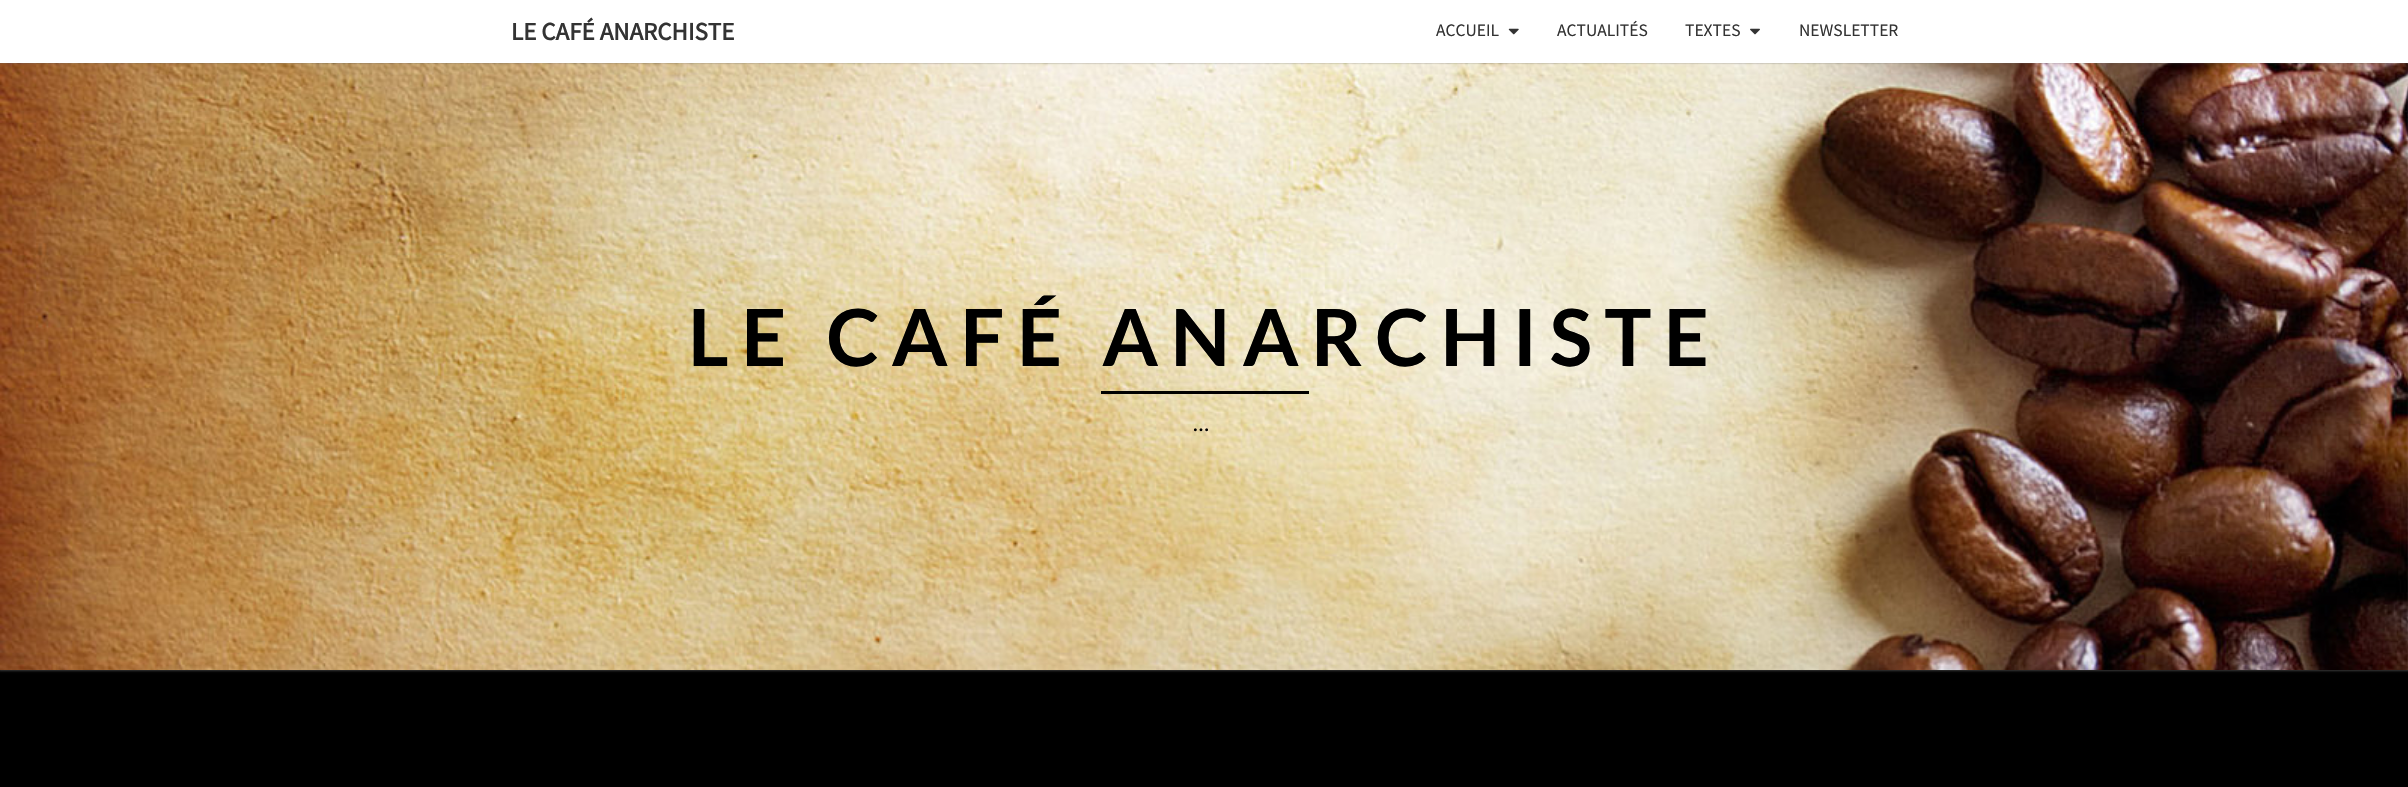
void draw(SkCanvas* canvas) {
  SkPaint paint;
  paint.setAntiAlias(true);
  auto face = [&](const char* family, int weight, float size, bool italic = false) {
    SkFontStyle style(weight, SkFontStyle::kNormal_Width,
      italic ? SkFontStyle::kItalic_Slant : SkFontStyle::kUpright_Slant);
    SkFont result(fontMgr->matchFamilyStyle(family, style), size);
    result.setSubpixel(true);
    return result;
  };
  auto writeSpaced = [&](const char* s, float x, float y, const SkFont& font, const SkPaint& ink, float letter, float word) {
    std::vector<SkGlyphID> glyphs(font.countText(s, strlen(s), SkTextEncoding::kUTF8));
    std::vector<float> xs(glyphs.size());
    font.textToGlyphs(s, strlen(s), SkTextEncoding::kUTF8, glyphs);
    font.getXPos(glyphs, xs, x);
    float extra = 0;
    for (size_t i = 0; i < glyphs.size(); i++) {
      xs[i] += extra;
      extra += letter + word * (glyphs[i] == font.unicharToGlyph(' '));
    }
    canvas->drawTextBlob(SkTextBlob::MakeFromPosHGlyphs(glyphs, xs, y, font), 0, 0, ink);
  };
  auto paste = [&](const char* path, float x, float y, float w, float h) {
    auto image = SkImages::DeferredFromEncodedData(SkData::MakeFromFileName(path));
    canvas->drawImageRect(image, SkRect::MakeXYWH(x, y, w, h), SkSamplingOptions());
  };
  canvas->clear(0xff000000);
  paint.setColor(0x4db6b6b6);
  paint.setMaskFilter(SkMaskFilter::MakeBlur(kNormal_SkBlurStyle, 1));
  canvas->drawRect(SkRect::MakeXYWH(-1, 61, 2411, 610), paint);
  paint.setMaskFilter(nullptr);
  paste("img/3.png", 0, 63, 2408, 607);
  paint.setColor(0x33646464);
  paint.setMaskFilter(SkMaskFilter::MakeBlur(kNormal_SkBlurStyle, 0.5f));
  canvas->drawRect(SkRect::MakeXYWH(0, 1, 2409, 63), paint);
  paint.setMaskFilter(nullptr);
  paint.setColor(0xffffffff);
  canvas->drawRect(SkRect::MakeXYWH(0, 0, 2408, 63), paint);
  paste("img/1.png", 1508, 28, 11, 7);
  paste("img/2.png", 1750, 28, 10, 7);
  paint.setColor(0xff000000);
  canvas->drawRect(SkRect::MakeXYWH(1101, 391, 208, 3), paint);
  auto f0 = face("Source Sans Pro", 700, 25);
  paint.setColor(0xff333333);
  canvas->drawString("LE CAFÉ ANARCHISTE", 511, 40, f0, paint);
  auto f1 = face("Source Sans Pro", 400, 17.5f);
  {
    const struct { const char* s; float x, y; } items[] = {
      {"ACCUEIL", 1436, 36},
      {"ACTUALITÉS", 1557, 36},
      {"TEXTES", 1685, 36},
      {"NEWSLETTER", 1799, 36},
    };
    for (auto [s, x, y] : items) {
      canvas->drawString(s, x, y, f1, paint);
    }
  }
  auto f2 = face("Lato", 700, 78.75f);
  paint.setColor(0xff000000);
  writeSpaced("LE CAFÉ ANARCHISTE", 688, 366, f2, paint, 12.5f, 0);
  auto f3 = face("Lato", 400, 22);
  writeSpaced("…", 1193, 431, f3, paint, 6, 0);
}
